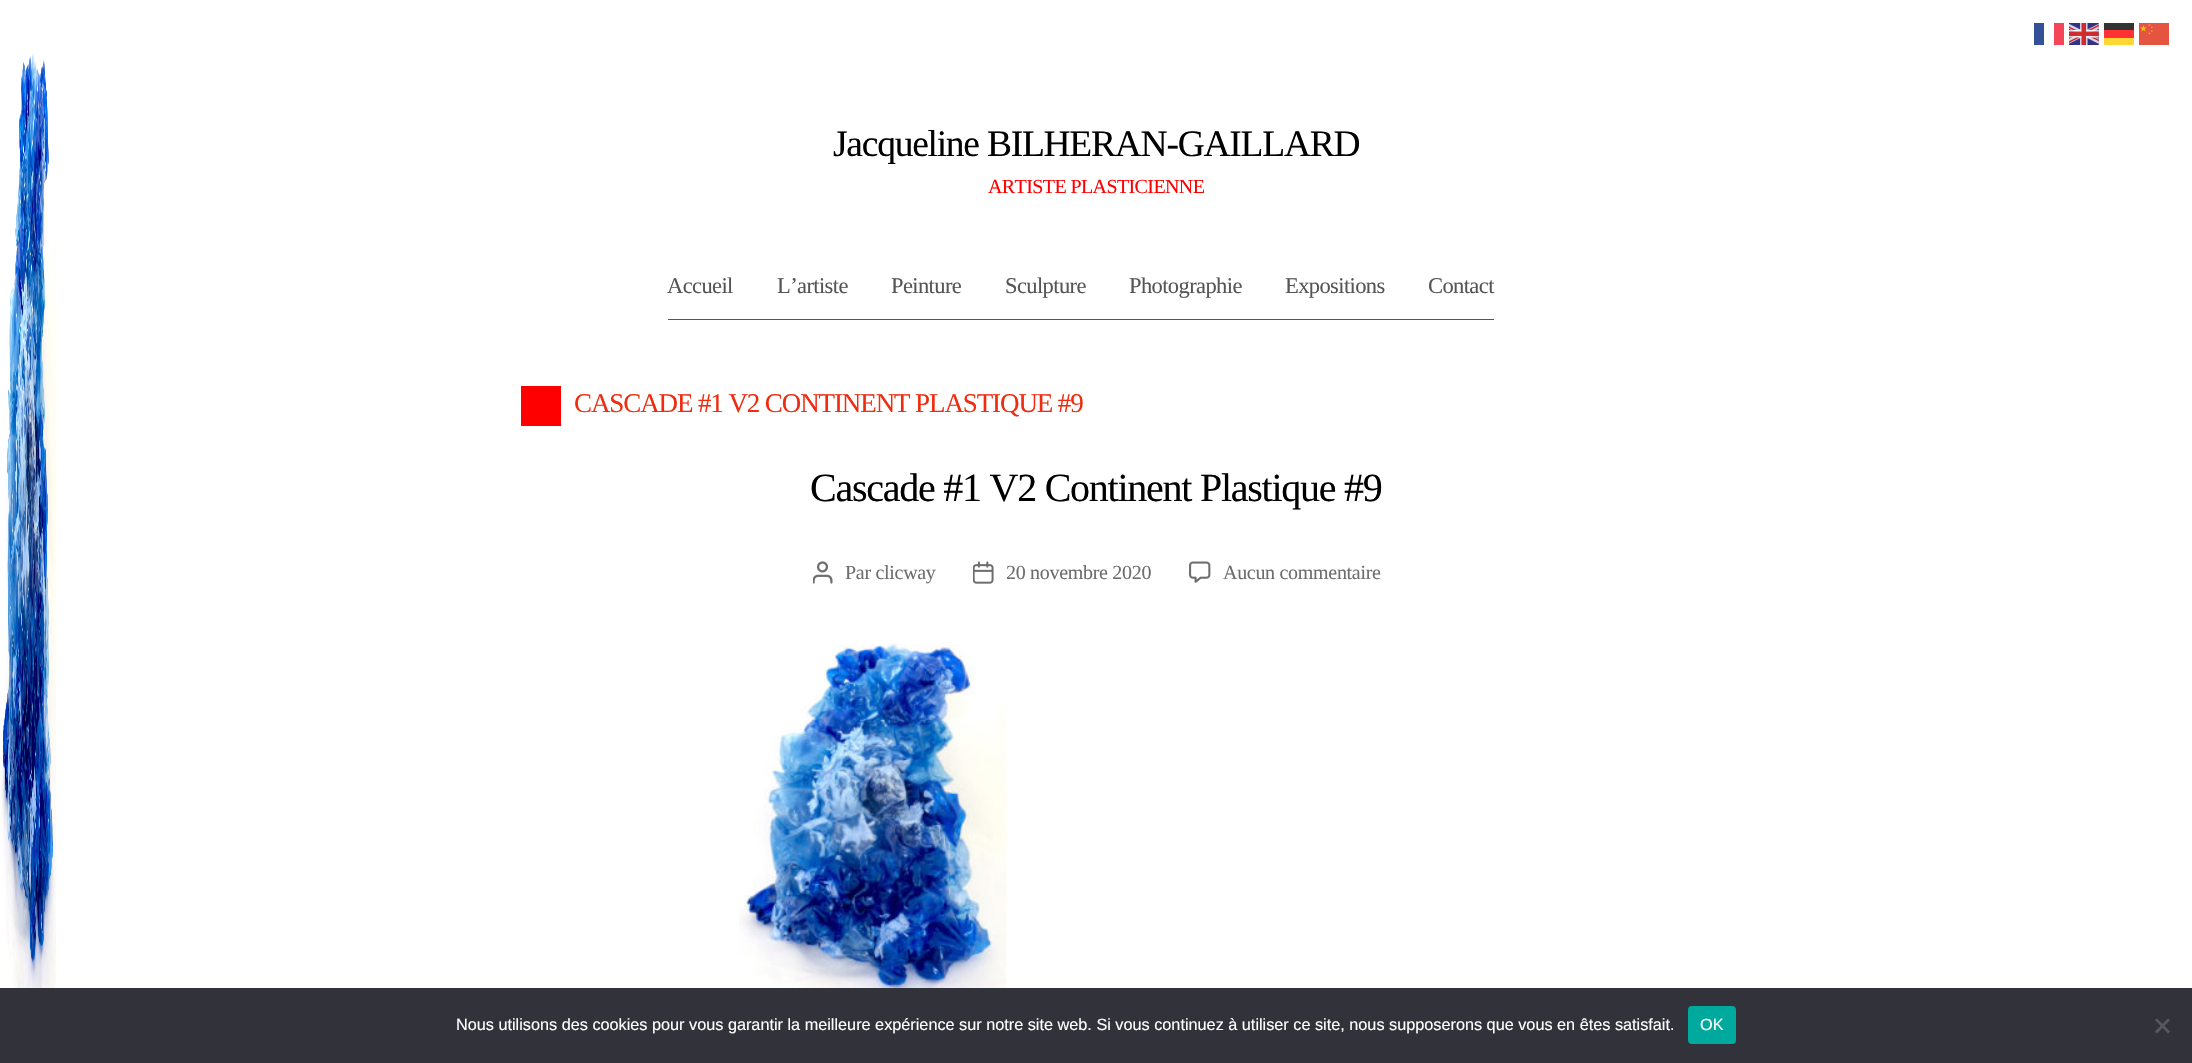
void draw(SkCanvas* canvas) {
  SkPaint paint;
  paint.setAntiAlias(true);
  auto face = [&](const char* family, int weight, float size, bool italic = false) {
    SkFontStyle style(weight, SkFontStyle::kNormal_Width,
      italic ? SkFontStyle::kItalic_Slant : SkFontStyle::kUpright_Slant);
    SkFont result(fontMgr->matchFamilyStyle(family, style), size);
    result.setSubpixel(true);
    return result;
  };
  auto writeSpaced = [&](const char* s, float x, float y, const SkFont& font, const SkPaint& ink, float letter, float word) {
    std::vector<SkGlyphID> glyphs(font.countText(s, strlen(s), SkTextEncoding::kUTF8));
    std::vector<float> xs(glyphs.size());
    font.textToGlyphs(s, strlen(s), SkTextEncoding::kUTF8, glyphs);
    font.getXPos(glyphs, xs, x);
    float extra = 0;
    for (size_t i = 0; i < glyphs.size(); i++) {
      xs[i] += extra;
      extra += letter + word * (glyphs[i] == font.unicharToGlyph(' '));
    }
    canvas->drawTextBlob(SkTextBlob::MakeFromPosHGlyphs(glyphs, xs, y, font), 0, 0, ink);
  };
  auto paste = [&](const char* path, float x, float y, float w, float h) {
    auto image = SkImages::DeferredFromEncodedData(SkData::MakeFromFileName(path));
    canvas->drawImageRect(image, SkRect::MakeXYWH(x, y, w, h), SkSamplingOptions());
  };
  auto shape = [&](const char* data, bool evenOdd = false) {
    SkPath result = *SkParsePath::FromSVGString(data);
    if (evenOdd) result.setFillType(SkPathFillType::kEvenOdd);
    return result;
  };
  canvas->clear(0xffffffff);
  paste("img/1.png", 0, 53, 57, 935);
  paint.setColor(0xff335199);
  canvas->drawRect(SkRect::MakeXYWH(2034, 23, 10, 22), paint);
  paint.setColor(0xfff54659);
  canvas->drawRect(SkRect::MakeXYWH(2054, 23, 10, 22), paint);
  paste("img/2.png", 2069, 23, 30, 22);
  paint.setColor(0xff333333);
  canvas->drawRect(SkRect::MakeXYWH(2104, 23, 30, 7), paint);
  paste("img/3.png", 2139, 23, 30, 22);
  {
    const struct { float x, y, w, h; SkColor color; } items[] = {
      {2104, 30, 30, 8, 0xffff3333},
      {2104, 38, 30, 7, 0xffffd633},
      {668, 319, 826, 1, 0xff555555},
      {521, 386, 40, 40, 0xffff0000},
    };
    for (auto [x, y, w, h, color] : items) {
      paint.setColor(color);
      canvas->drawRect(SkRect::MakeXYWH(x, y, w, h), paint);
    }
  }
  paste("img/4.png", 813, 561, 20, 23);
  paste("img/5.png", 973, 561, 21, 23);
  paste("img/6.png", 1189, 561, 22, 22);
  paste("img/7.png", 739, 643, 268, 345);
  paint.setColor(0xff32323a);
  canvas->drawRect(SkRect::MakeXYWH(0, 988, 2192, 75), paint);
  paint.setColor(0xff00a99d);
  canvas->drawRoundRect(SkRect::MakeXYWH(1688, 1006, 48, 38), 4, 4, paint);
  paint.setColor(0xff59595d);
  canvas->drawPath(shape("M2168 1018.5L2170 1020L2157 1033.5L2155 1031.5Z"), paint);
  canvas->drawPath(shape("M2155 1020L2157 1018.5L2170 1031.5L2168 1033.5Z"), paint);
  auto f0 = face("Liberation Serif", 400, 37.5f);
  paint.setColor(0xff000000);
  writeSpaced("Jacqueline BILHERAN-GAILLARD", 833, 156, f0, paint, -1.25f, 0);
  auto f1 = face("Liberation Serif", 400, 20);
  paint.setColor(0xffff0000);
  writeSpaced("ARTISTE PLASTICIENNE", 988, 193, f1, paint, -0.6f, 0);
  auto f2 = face("Liberation Serif", 400, 22.5f);
  paint.setColor(0xff555555);
  {
    const struct { const char* s; float x, y; } items[] = {
      {"Accueil", 667, 293},
      {"L’artiste", 777, 293},
      {"Peinture", 891, 293},
      {"Sculpture", 1005, 293},
      {"Photographie", 1129, 293},
      {"Expositions", 1285, 293},
      {"Contact", 1428, 293},
    };
    for (auto [s, x, y] : items) {
      writeSpaced(s, x, y, f2, paint, -0.6f, 0);
    }
  }
  auto f3 = face("Liberation Serif", 400, 27);
  paint.setColor(0xffef2c0f);
  writeSpaced("CASCADE #1 V2 CONTINENT PLASTIQUE #9", 574, 412, f3, paint, -1.1f, 0);
  auto f4 = face("Liberation Serif", 400, 40);
  paint.setColor(0xff000000);
  writeSpaced("Cascade #1 V2 Continent Plastique #9", 810, 501, f4, paint, -1.25f, 0);
  paint.setColor(0xff6d6d6d);
  {
    const struct { const char* s; float x, y; } items[] = {
      {"Par clicway", 845, 579},
      {"20 novembre 2020", 1006, 579},
      {"Aucun commentaire", 1223, 579},
    };
    for (auto [s, x, y] : items) {
      writeSpaced(s, x, y, f1, paint, -0.3f, 0);
    }
  }
  auto f5 = face("Liberation Sans", 400, 16.25f);
  paint.setColor(0xffffffff);
  canvas->drawString("Nous utilisons des cookies pour vous garantir la meilleure expérience sur notre site web. Si vous continuez à utiliser ce site, nous supposerons que vous en êtes satisfait.", 456, 1030, f5, paint);
  canvas->drawString("OK", 1700, 1030, f5, paint);
}
